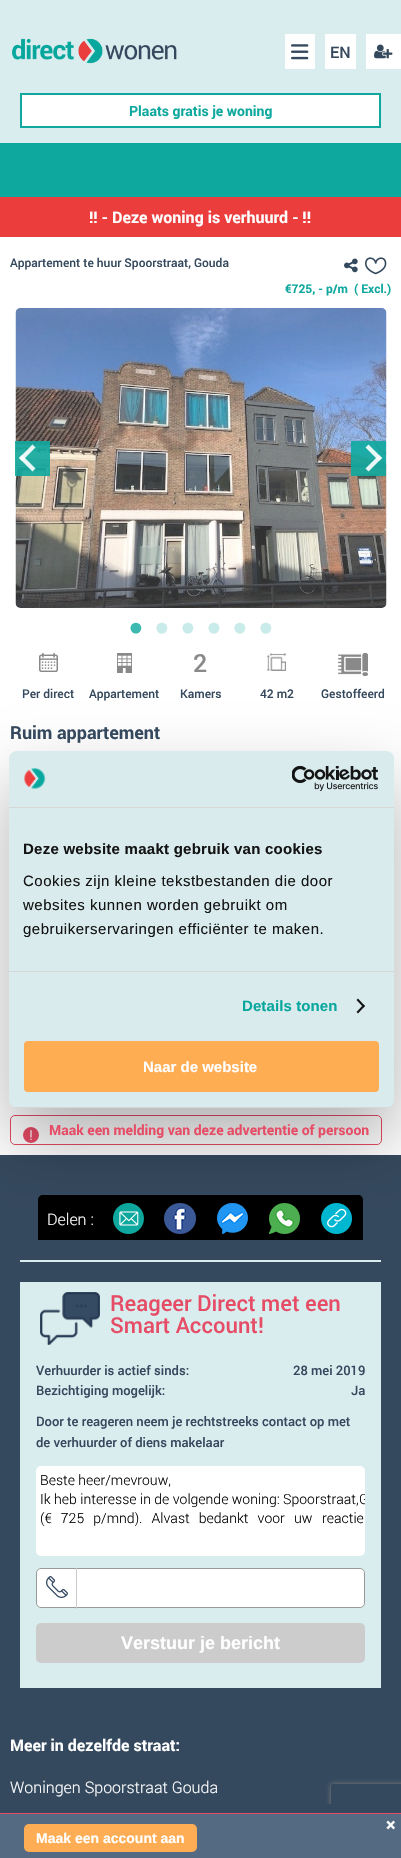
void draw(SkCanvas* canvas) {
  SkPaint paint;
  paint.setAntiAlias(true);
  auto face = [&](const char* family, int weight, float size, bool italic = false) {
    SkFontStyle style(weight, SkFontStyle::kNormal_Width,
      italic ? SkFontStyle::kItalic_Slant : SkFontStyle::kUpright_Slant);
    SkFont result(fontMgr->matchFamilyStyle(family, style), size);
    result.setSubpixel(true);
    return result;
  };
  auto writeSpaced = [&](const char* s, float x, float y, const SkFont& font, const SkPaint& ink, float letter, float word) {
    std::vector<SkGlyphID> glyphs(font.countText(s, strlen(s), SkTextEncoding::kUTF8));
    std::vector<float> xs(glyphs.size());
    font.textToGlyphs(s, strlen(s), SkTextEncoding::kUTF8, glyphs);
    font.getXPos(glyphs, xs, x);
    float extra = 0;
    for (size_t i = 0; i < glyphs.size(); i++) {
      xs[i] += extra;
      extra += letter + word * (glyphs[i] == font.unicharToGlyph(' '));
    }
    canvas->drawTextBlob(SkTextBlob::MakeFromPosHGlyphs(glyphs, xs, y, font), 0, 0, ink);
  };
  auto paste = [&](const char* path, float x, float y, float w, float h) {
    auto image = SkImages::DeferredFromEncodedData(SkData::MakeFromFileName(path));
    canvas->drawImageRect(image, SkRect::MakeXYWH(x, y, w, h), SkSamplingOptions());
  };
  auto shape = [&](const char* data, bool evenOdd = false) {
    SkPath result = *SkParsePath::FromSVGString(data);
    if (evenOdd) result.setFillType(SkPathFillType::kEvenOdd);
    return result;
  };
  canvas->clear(0xffd9ecee);
  paste("img/1.png", 12, 38, 165, 26);
  paint.setColor(0xffffffff);
  canvas->drawRect(SkRect::MakeXYWH(285, 34, 30, 35), paint);
  paste("img/2.png", 291, 44, 18, 16);
  canvas->drawRect(SkRect::MakeXYWH(325, 34, 31, 35), paint);
  canvas->drawRect(SkRect::MakeXYWH(366, 34, 35, 35), paint);
  paste("img/3.png", 374, 44, 19, 15);
  canvas->drawRect(SkRect::MakeXYWH(21, 94, 359, 33), paint);
  paint.setStroke(true);
  paint.setStrokeWidth(2);
  paint.setColor(0xff0ea89e);
  canvas->drawRect(SkRect::MakeXYWH(21, 94, 359, 33), paint);
  paint.setStroke(false);
  {
    const struct { float x, y, w, h; SkColor color; } items[] = {
      {0, 143, 401, 54, 0xff0ea89e},
      {0, 197, 401, 40, 0xffea3d3c},
      {0, 237, 401, 918, 0xffffffff},
    };
    for (auto [x, y, w, h, color] : items) {
      paint.setColor(color);
      canvas->drawRect(SkRect::MakeXYWH(x, y, w, h), paint);
    }
  }
  paste("img/4.png", 344, 258, 14, 15);
  paste("img/5.png", 365, 257, 22, 18);
  paste("img/6.png", 15, 308, 372, 300);
  paint.setColor(0xe60ea89e);
  canvas->drawRect(SkRect::MakeXYWH(15, 441, 35, 35), paint);
  paint.setColor(0xe6ffffff);
  canvas->drawPath(shape("M19 458L32.5 444.5L35.5 447.5L22 461Z"), paint);
  canvas->drawPath(shape("M19 458L22 455L35.5 468.5L32.5 471.5Z"), paint);
  paint.setColor(0xe60ea89e);
  canvas->drawRect(SkRect::MakeXYWH(351, 441, 35, 35), paint);
  paint.setColor(0xe6ffffff);
  canvas->drawPath(shape("M382 458L368.5 471.5L365.5 468.5L379 455Z"), paint);
  canvas->drawPath(shape("M382 458L379 461L365.5 447.5L368.5 444.5Z"), paint);
  paste("img/7.png", 39, 653, 19, 19);
  paste("img/8.png", 117, 653, 15, 20);
  paste("img/9.png", 267, 653, 19, 18);
  paste("img/10.png", 338, 653, 30, 23);
  paint.setStroke(true);
  paint.setStrokeWidth(1);
  paint.setColor(0xffe64c65);
  canvas->drawRoundRect(SkRect::MakeXYWH(10.5f, 1115.5f, 371, 29), 4.5f, 4.5f, paint);
  paste("img/11.png", 23, 1127, 16, 16);
  paint.setStroke(false);
  paint.setColor(0xff35495e);
  canvas->drawRect(SkRect::MakeXYWH(0, 1155, 401, 649), paint);
  canvas->save();
  canvas->clipPath(shape("M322 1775H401V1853H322ZM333 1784H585C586 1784 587 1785 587 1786V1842C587 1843 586 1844 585 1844H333C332 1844 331 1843 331 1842V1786C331 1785 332 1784 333 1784Z", true), true);
  paint.setColor(0xff808080);
  paint.setMaskFilter(SkMaskFilter::MakeBlur(kNormal_SkBlurStyle, 2.5f));
  canvas->drawRoundRect(SkRect::MakeXYWH(331, 1784, 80, 60), 2, 2, paint);
  paint.setMaskFilter(nullptr);
  canvas->restore();
  paint.setColor(0xff35495e);
  canvas->drawRect(SkRect::MakeXYWH(0, 1804, 401, 9), paint);
  paint.setColor(0xff000000);
  canvas->drawPath(shape("M43 1195H358C361 1195 363 1197 363 1200V1240H38V1200C38 1197 40 1195 43 1195Z"), paint);
  paste("img/12.png", 113, 1203, 31, 31);
  paste("img/13.png", 164, 1203, 32, 31);
  paste("img/14.png", 217, 1203, 31, 31);
  paste("img/15.png", 269, 1203, 31, 31);
  paste("img/16.png", 321, 1203, 31, 31);
  paint.setColor(0xffd9ecee);
  canvas->drawRect(SkRect::MakeXYWH(20, 1260, 361, 2), paint);
  canvas->drawRect(SkRect::MakeXYWH(20, 1282, 361, 406), paint);
  paste("img/17.png", 40, 1292, 60, 53);
  paint.setColor(0xffffffff);
  canvas->drawRoundRect(SkRect::MakeXYWH(36, 1466, 329, 90), 5, 5, paint);
  canvas->drawRoundRect(SkRect::MakeXYWH(36.5f, 1568.5f, 328, 39), 4.5f, 4.5f, paint);
  paint.setStroke(true);
  paint.setColor(0xff999999);
  canvas->drawRoundRect(SkRect::MakeXYWH(36.5f, 1568.5f, 328, 39), 4.5f, 4.5f, paint);
  paint.setStroke(false);
  paint.setColor(0xffcccccc);
  canvas->drawRect(SkRect::MakeXYWH(76, 1568, 1, 41), paint);
  paste("img/18.png", 46, 1576, 22, 22);
  canvas->drawRoundRect(SkRect::MakeXYWH(36, 1623, 329, 40), 5, 5, paint);
  paint.setColor(0x4d000000);
  paint.setMaskFilter(SkMaskFilter::MakeBlur(kNormal_SkBlurStyle, 34));
  canvas->drawRoundRect(SkRect::MakeXYWH(9, 783, 385, 357), 8, 8, paint);
  paint.setMaskFilter(nullptr);
  paint.setColor(0xffd9ebed);
  canvas->drawRoundRect(SkRect::MakeXYWH(9, 751, 385, 357), 8, 8, paint);
  paint.setColor(0xffd6d6d6);
  canvas->drawRect(SkRect::MakeXYWH(9, 807, 385, 1), paint);
  paste("img/19.png", 24, 768, 22, 22);
  paste("img/20.png", 292, 766, 87, 25);
  canvas->drawRect(SkRect::MakeXYWH(9, 971, 385, 1), paint);
  paint.setColor(0xff141414);
  canvas->drawPath(shape("M358 998.5L365 1006L363.5 1007.5L356.5 1000Z"), paint);
  canvas->drawPath(shape("M363.5 1004.5L365 1006L358 1013.5L356.5 1012Z"), paint);
  canvas->save();
  canvas->clipPath(shape("M17 751H386C390.5 751 394 754.5 394 759V1100C394 1104.5 390.5 1108 386 1108H17C12.5 1108 9 1104.5 9 1100V759C9 754.5 12.5 751 17 751Z"), true);
  paint.setColor(0xffd6d6d6);
  canvas->drawRect(SkRect::MakeXYWH(9, 1107, 385, 1), paint);
  canvas->restore();
  paint.setColor(0xffffad53);
  canvas->drawRoundRect(SkRect::MakeXYWH(25, 1042, 353, 49), 3, 3, paint);
  paint.setStroke(true);
  paint.setStrokeWidth(2);
  canvas->drawRoundRect(SkRect::MakeXYWH(25, 1042, 353, 49), 3, 3, paint);
  paint.setStroke(false);
  paint.setColor(0xff546a82);
  canvas->drawRect(SkRect::MakeXYWH(0, 1814, 401, 44), paint);
  paint.setColor(0xffe64c65);
  canvas->drawRect(SkRect::MakeXYWH(0, 1813, 401, 1), paint);
  paint.setColor(0xffffad54);
  canvas->drawRoundRect(SkRect::MakeXYWH(24, 1824, 173, 28), 5, 5, paint);
  auto f0 = face("Roboto", 500, 16);
  paint.setColor(0xff35495e);
  canvas->drawString("EN", 330, 58, f0, paint);
  auto f1 = face("Roboto", 700, 14);
  paint.setColor(0xff0ea89e);
  canvas->drawString("Plaats gratis je woning", 129, 116, f1, paint);
  auto f2 = face("Roboto", 700, 16);
  paint.setColor(0xffffffff);
  canvas->drawString("!! - Deze woning is verhuurd - !!", 89, 223, f2, paint);
  auto f3 = face("Roboto", 500, 12);
  paint.setColor(0xff35495e);
  canvas->drawString("Appartement te huur Spoorstraat, Gouda", 10, 267, f3, paint);
  auto f4 = face("Roboto", 700, 12);
  paint.setColor(0xff0ea89e);
  canvas->drawString("€725, - p/m", 285, 293, f4, paint);
  canvas->drawString("( Excl.)", 354, 293, f4, paint);
  auto f5 = face("Liberation Serif", 400, 45);
  paint.setColor(0xff3cb9b0);
  canvas->drawString("•", 128, 643, f5, paint);
  paint.setColor(0xffc9ebe9);
  {
    const struct { const char* s; float x, y; } items[] = {
      {"•", 154, 643},
      {"•", 180, 643},
      {"•", 206, 643},
      {"•", 232, 643},
      {"•", 258, 643},
    };
    for (auto [s, x, y] : items) {
      canvas->drawString(s, x, y, f5, paint);
    }
  }
  paint.setColor(0xff35495e);
  canvas->drawString("Per direct", 22, 698, f3, paint);
  canvas->drawString("Appartement", 89, 698, f3, paint);
  auto f6 = face("Roboto", 500, 25);
  paint.setColor(0xff898989);
  canvas->drawString("2", 193, 672, f6, paint);
  paint.setColor(0xff35495e);
  {
    const struct { const char* s; float x, y; } items[] = {
      {"Kamers", 180, 698},
      {"42 m2", 260, 698},
      {"Gestoffeerd", 321, 698},
    };
    for (auto [s, x, y] : items) {
      canvas->drawString(s, x, y, f3, paint);
    }
  }
  auto f7 = face("Roboto", 700, 18);
  canvas->drawString("Ruim appartement", 10, 739, f7, paint);
  paint.setColor(0xffe64c65);
  canvas->drawString("Maak een melding van deze advertentie of persoon", 49, 1135, f1, paint);
  auto f8 = face("Roboto", 300, 16);
  paint.setColor(0xffffffff);
  canvas->drawString("Delen :", 47, 1225, f8, paint);
  auto f9 = face("Roboto", 500, 22);
  paint.setColor(0xffe64c65);
  canvas->drawString("Reageer Direct met een", 110, 1311, f9, paint);
  canvas->drawString("Smart Account!", 110, 1333, f9, paint);
  auto f10 = face("Roboto", 500, 13);
  paint.setColor(0xff35495e);
  {
    const struct { const char* s; float x, y; } items[] = {
      {"Verhuurder is actief sinds:", 36, 1375},
      {"28 mei 2019", 293, 1375},
      {"Bezichtiging mogelijk:", 36, 1395},
      {"Ja", 351, 1395},
      {"Door te reageren neem je rechtstreeks contact op met", 36, 1426},
      {"de verhuurder of diens makelaar", 36, 1447},
    };
    for (auto [s, x, y] : items) {
      canvas->drawString(s, x, y, f10, paint);
    }
  }
  auto f11 = face("Roboto", 300, 14);
  paint.setColor(0xff000000);
  canvas->drawString("Beste heer/mevrouw,", 40, 1485, f11, paint);
  canvas->drawString("Ik heb interesse in de volgende woning: Spoorstraat,", 40, 1504, f11, paint);
  canvas->save();
  canvas->clipPath(shape("M41 1466H360C363 1466 365 1468 365 1471V1551C365 1554 363 1556 360 1556H41C38 1556 36 1554 36 1551V1471C36 1468 38 1466 41 1466Z"), true);
  canvas->drawString("G", 359, 1504, f11, paint);
  canvas->restore();
  writeSpaced("(€ 725 p/mnd). Alvast bedankt voor uw", 40, 1523, f11, paint, 0, 5.75f);
  canvas->drawString("reactie", 322, 1523, f11, paint);
  auto f12 = face("Liberation Sans", 700, 18);
  paint.setColor(0xffffffff);
  canvas->drawString("Verstuur je bericht", 121, 1649, f12, paint);
  canvas->drawString("Meer in dezelfde straat:", 10, 1751, f2, paint);
  canvas->drawString("Woningen Spoorstraat Gouda", 10, 1793, f8, paint);
  auto f13 = face("Liberation Sans", 700, 15);
  paint.setColor(0xff141414);
  writeSpaced("Deze website maakt gebruik van cookies", 23, 854, f13, paint, 0.25f, 0);
  auto f14 = face("Liberation Sans", 400, 15);
  {
    const struct { const char* s; float x, y; } items[] = {
      {"Cookies zijn kleine tekstbestanden die door", 23, 886},
      {"websites kunnen worden gebruikt om", 23, 910},
      {"gebruikerservaringen efficiënter te maken.", 23, 934},
    };
    for (auto [s, x, y] : items) {
      writeSpaced(s, x, y, f14, paint, 0.5f, 0);
    }
  }
  paint.setColor(0xff08a69d);
  writeSpaced("Details tonen", 242, 1011, f13, paint, 0.1f, 0);
  paint.setColor(0xffffffff);
  canvas->drawString("Naar de website", 143, 1072, f13, paint);
  canvas->drawString("×", 386, 1831, f7, paint);
  auto f15 = face("Liberation Sans", 700, 14);
  canvas->drawString("Maak een account aan", 36, 1843, f15, paint);
}
